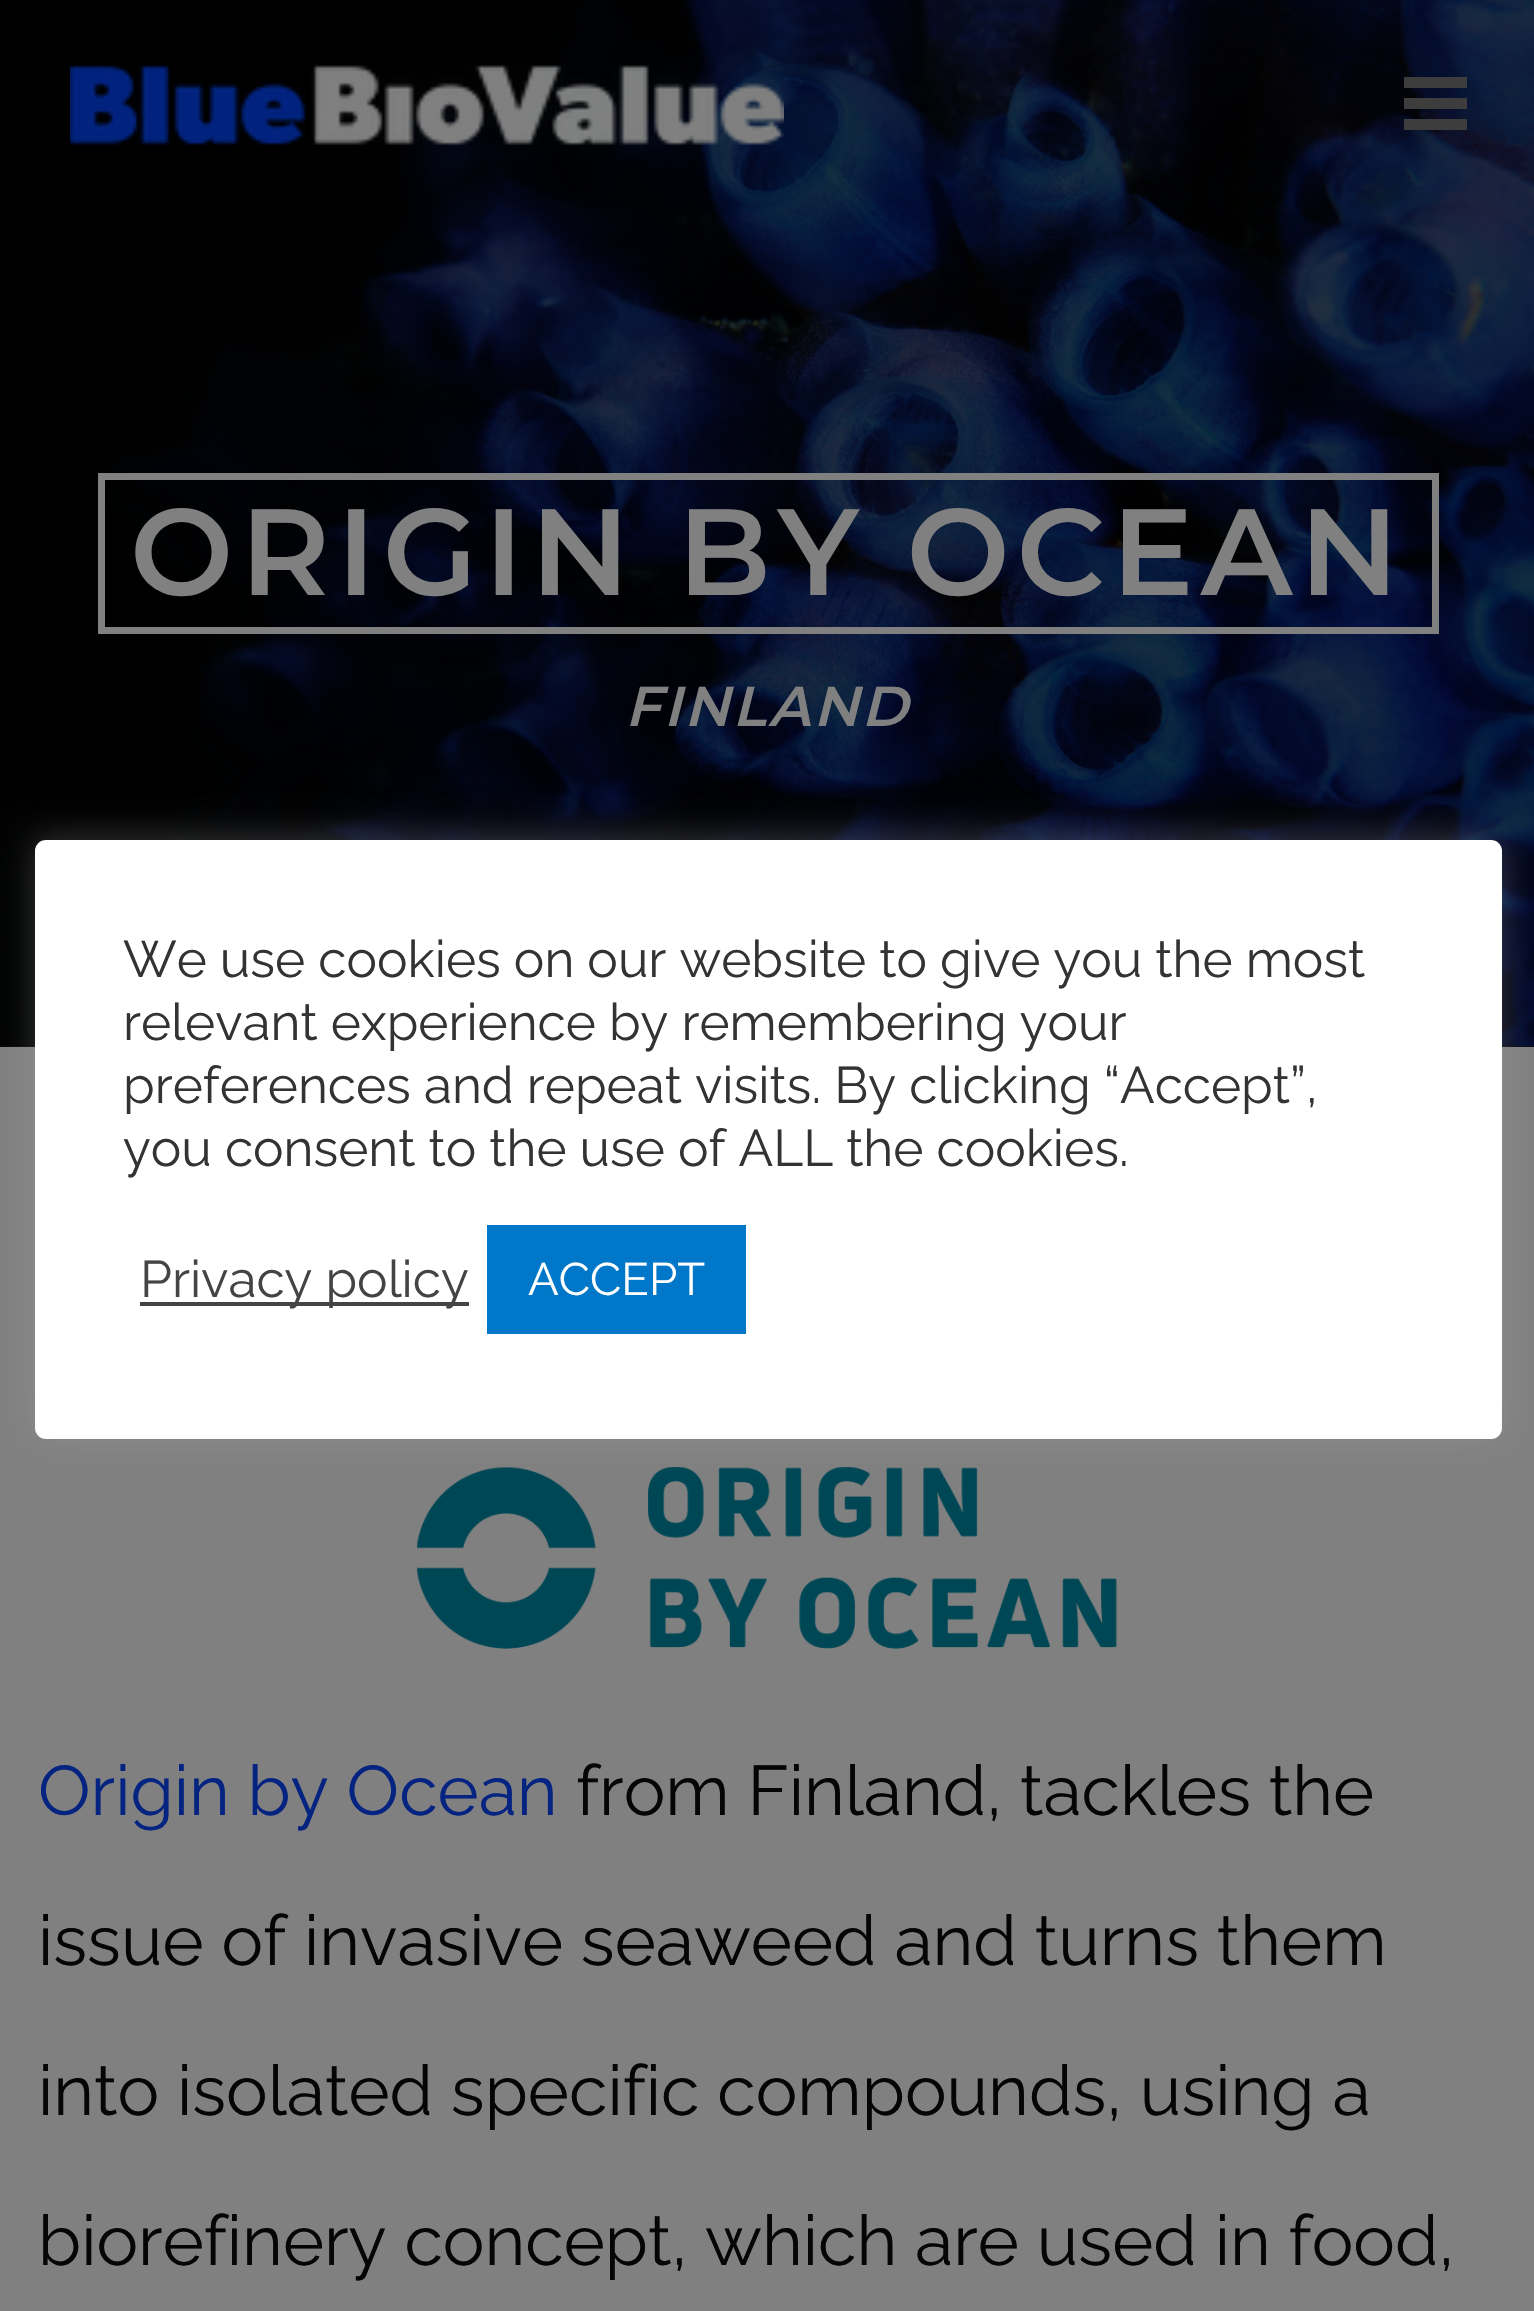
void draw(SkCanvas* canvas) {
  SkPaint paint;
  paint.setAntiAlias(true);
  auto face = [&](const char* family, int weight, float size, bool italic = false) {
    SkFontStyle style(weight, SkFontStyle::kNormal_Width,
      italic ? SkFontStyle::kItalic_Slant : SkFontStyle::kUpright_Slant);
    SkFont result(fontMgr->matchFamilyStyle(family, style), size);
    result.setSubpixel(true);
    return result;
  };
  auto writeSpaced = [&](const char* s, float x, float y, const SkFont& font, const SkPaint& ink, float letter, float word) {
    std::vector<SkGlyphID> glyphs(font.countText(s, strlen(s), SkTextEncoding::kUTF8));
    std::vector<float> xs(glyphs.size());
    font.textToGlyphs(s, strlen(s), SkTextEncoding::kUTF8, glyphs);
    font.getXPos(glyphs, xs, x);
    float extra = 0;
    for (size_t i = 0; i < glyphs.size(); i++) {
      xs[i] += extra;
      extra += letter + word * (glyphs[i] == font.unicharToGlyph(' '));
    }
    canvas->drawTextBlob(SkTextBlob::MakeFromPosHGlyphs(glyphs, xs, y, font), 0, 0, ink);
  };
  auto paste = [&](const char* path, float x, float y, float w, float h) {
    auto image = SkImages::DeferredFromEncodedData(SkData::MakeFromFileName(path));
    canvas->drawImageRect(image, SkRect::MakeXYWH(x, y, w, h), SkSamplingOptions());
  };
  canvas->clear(0xff808080);
  paint.setColor(0xff0c0c0c);
  canvas->drawRect(SkRect::MakeXYWH(0, 1046, 1534, 1), paint);
  paste("img/2.png", 0, 0, 1534, 1047);
  paste("img/1.png", 70, 65, 714, 80);
  {
    const struct { float x, y, w, h; SkColor color; } items[] = {
      {1404, 77, 63, 11, 0xff3d3d3d},
      {1404, 98, 63, 11, 0xff3d3d3d},
      {1404, 119, 63, 11, 0xff3d3d3d},
    };
    for (auto [x, y, w, h, color] : items) {
      paint.setColor(color);
      canvas->drawRect(SkRect::MakeXYWH(x, y, w, h), paint);
    }
  }
  paint.setStroke(true);
  paint.setStrokeWidth(7);
  paint.setColor(0xff808080);
  canvas->drawRect(SkRect::MakeXYWH(101.5f, 476.5f, 1334, 154), paint);
  paste("img/3.png", 417, 1467, 700, 182);
  paint.setStroke(false);
  paint.setColor(0x4dacabab);
  paint.setMaskFilter(SkMaskFilter::MakeBlur(kNormal_SkBlurStyle, 17.5f));
  canvas->drawRoundRect(SkRect::MakeXYWH(35, 837, 1467, 598), 11, 11, paint);
  paint.setMaskFilter(nullptr);
  paint.setColor(0xffffffff);
  canvas->drawRoundRect(SkRect::MakeXYWH(35, 840, 1467, 599), 11, 11, paint);
  paint.setColor(0xff444444);
  canvas->drawRect(SkRect::MakeXYWH(140, 1302, 329, 4), paint);
  paint.setColor(0xff0077c8);
  canvas->drawRect(SkRect::MakeXYWH(487, 1225, 259, 109), paint);
  auto f0 = face("Montserrat", 100, 122.5f);
  paint.setColor(0xff808080);
  writeSpaced("ORIGIN BY OCEAN", 130, 595, f0, paint, 7, 0);
  auto f1 = face("Montserrat", 100, 56, true);
  writeSpaced("FINLAND", 625, 726, f1, paint, 2.75f, 0);
  auto f2 = face("Raleway", 400, 70);
  paint.setColor(0xff052380);
  canvas->drawString("Origin by Ocean", 38, 1815, f2, paint);
  paint.setColor(0xff050505);
  {
    const struct { const char* s; float x, y; } items[] = {
      {"from Finland, tackles the", 576, 1815},
      {"issue of invasive seaweed and turns them", 38, 1965},
      {"into isolated specific compounds, using a", 38, 2115},
      {"biorefinery concept, which are used in food,", 38, 2265},
    };
    for (auto [s, x, y] : items) {
      canvas->drawString(s, x, y, f2, paint);
    }
  }
  auto f3 = face("Raleway", 400, 51.3f);
  paint.setColor(0xff333333);
  {
    const struct { const char* s; float x, y; } items[] = {
      {"We use cookies on our website to give you the most", 123, 977},
      {"relevant experience by remembering your", 123, 1040},
      {"preferences and repeat visits. By clicking “Accept”,", 123, 1103},
      {"you consent to the use of ALL the cookies.", 123, 1166},
    };
    for (auto [s, x, y] : items) {
      canvas->drawString(s, x, y, f3, paint);
    }
  }
  paint.setColor(0xff444444);
  canvas->drawString("Privacy policy", 140, 1297, f3, paint);
  auto f4 = face("Raleway", 400, 45.5f);
  paint.setColor(0xffffffff);
  canvas->drawString("ACCEPT", 528, 1295, f4, paint);
}
